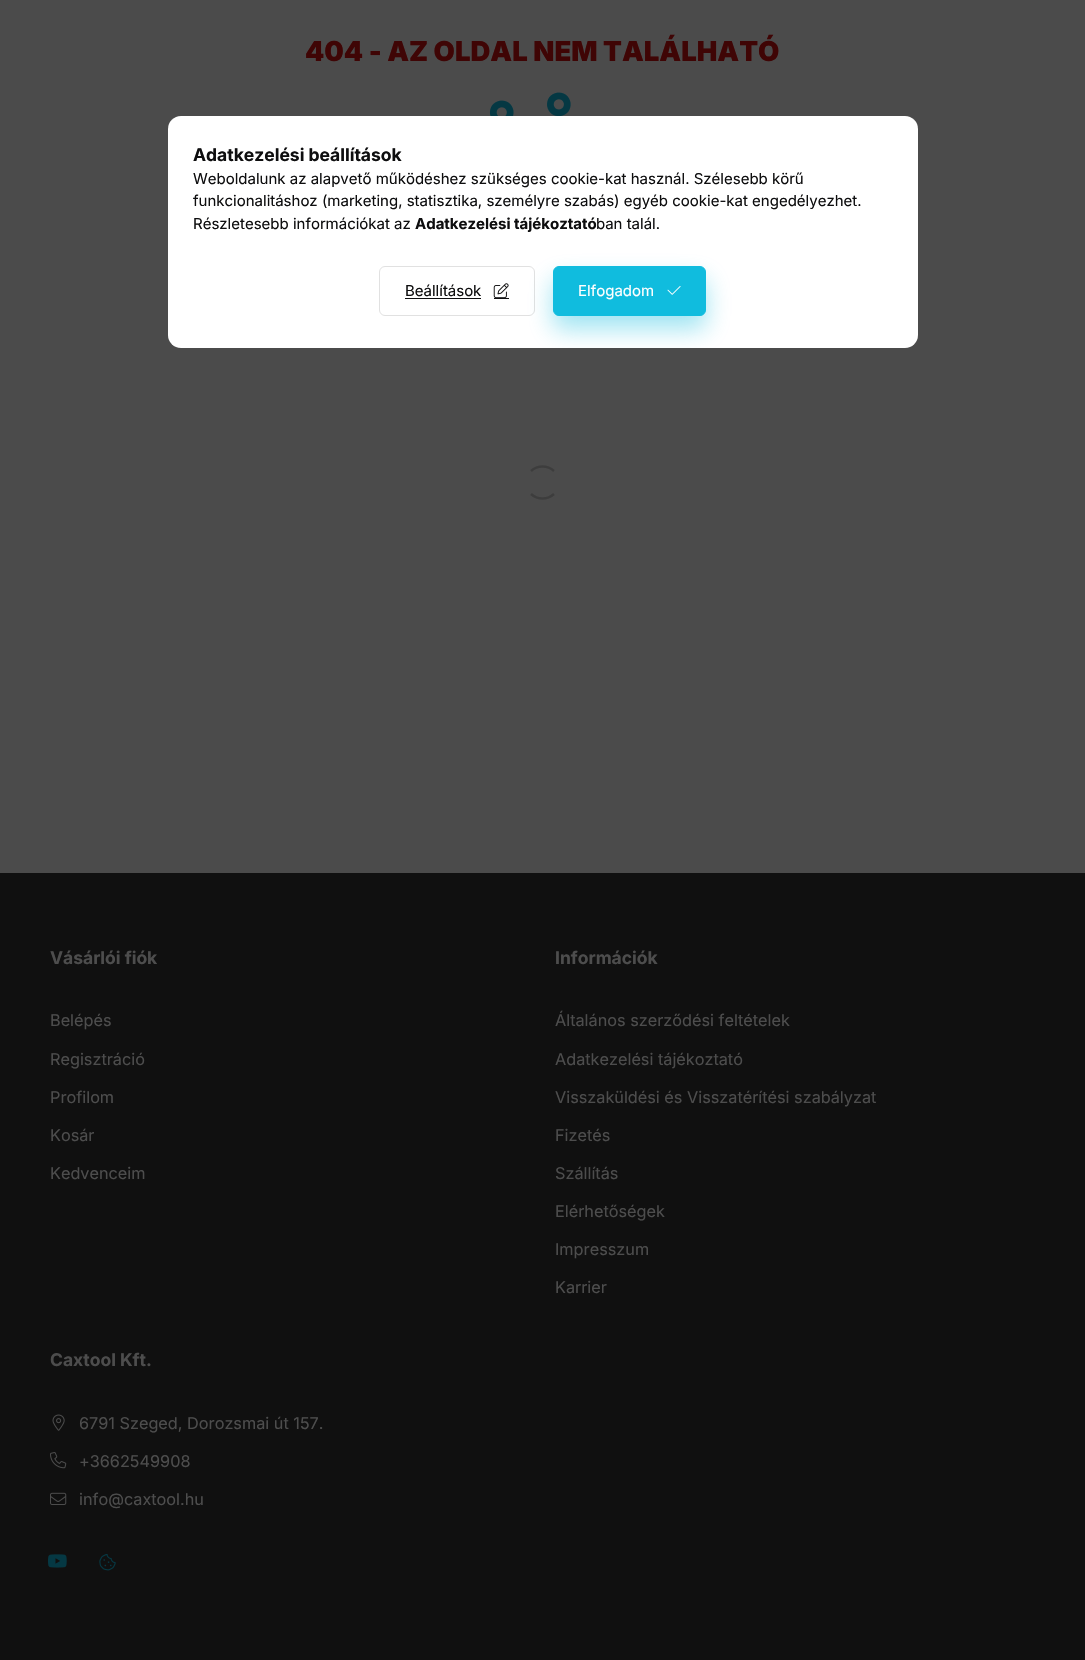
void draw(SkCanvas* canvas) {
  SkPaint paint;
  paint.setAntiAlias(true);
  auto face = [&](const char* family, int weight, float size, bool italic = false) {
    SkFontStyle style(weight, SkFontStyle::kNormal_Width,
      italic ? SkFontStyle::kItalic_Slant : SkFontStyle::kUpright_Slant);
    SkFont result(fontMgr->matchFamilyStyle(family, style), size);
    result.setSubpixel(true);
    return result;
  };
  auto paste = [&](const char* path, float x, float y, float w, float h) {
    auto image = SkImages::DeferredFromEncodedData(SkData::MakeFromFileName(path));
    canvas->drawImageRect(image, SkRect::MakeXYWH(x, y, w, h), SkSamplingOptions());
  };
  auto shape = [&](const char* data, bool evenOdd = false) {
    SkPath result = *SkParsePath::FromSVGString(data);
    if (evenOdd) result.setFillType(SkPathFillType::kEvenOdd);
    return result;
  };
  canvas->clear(0xff4b4b4b);
  paste("img/1.png", 489, 92, 82, 24);
  {
    const SkColor colors[] = {0xff4b4b4b, 0xff424242, 0xff4b4b4b};
    const float stops[] = {0.1f, 0.5f, 0.9f};
    const SkPoint ends[] = {{25, 198}, {1060, 197}};
    paint.setShader(SkGradientShader::MakeLinear(ends, colors, stops, 3, SkTileMode::kClamp));
    paint.setAlpha(255);
  }
  canvas->drawRect(SkRect::MakeXYWH(244, 181, 598, 33), paint);
  {
    const SkColor colors[] = {0xff4b4b4b, 0x004b4b4b};
    const float stops[] = {0, 1};
    const SkPoint ends[] = {{543, 214}, {543, 181}};
    paint.setShader(SkGradientShader::MakeLinear(ends, colors, stops, 2, SkTileMode::kClamp));
    paint.setAlpha(255);
  }
  canvas->drawRect(SkRect::MakeXYWH(244, 190, 598, 24), paint);
  paint.setStroke(true);
  paint.setStrokeWidth(2.5f);
  paint.setShader(nullptr);
  paint.setColor(0xff3d3d3d);
  canvas->drawPath(shape("M531 471C537.5 465 547.5 465 554 471M554 494C547.5 500 537.5 500 531 494"), paint);
  paint.setStroke(false);
  paint.setColor(0xff101010);
  canvas->drawRect(SkRect::MakeXYWH(0, 873, 1085, 787), paint);
  paste("img/2.png", 52, 1414, 13, 17);
  paste("img/3.png", 50, 1452, 17, 17);
  paste("img/4.png", 50, 1492, 17, 13);
  paste("img/5.png", 48, 1554, 19, 14);
  paste("img/6.png", 99, 1554, 17, 17);
  paint.setColor(0xffffffff);
  canvas->drawRoundRect(SkRect::MakeXYWH(168, 116, 750, 232), 13, 13, paint);
  paint.setStroke(true);
  paint.setStrokeWidth(1);
  paint.setColor(0xffe1e1e1);
  canvas->drawRoundRect(SkRect::MakeXYWH(379.5f, 266.5f, 155, 49), 5.5f, 5.5f, paint);
  paint.setStroke(false);
  paint.setColor(0xff0e0e0f);
  canvas->drawRect(SkRect::MakeXYWH(405, 298, 76, 1), paint);
  paste("img/7.png", 493, 283, 16, 15);
  canvas->drawRect(SkRect::MakeXYWH(494, 298, 15, 1), paint);
  canvas->save();
  canvas->clipPath(shape("M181 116H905C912 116 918 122 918 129V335C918 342 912 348 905 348H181C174 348 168 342 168 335V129C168 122 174 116 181 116Z"), true);
  paint.setColor(0x6610bcde);
  paint.setMaskFilter(SkMaskFilter::MakeBlur(kNormal_SkBlurStyle, 12.5f));
  canvas->drawRoundRect(SkRect::MakeXYWH(553, 279, 153, 50), 6, 6, paint);
  paint.setMaskFilter(nullptr);
  canvas->restore();
  paint.setColor(0xff10bcde);
  canvas->drawRoundRect(SkRect::MakeXYWH(553.5f, 266.5f, 152, 49), 5.5f, 5.5f, paint);
  paint.setStroke(true);
  canvas->drawRoundRect(SkRect::MakeXYWH(553.5f, 266.5f, 152, 49), 5.5f, 5.5f, paint);
  paste("img/8.png", 667, 286, 14, 9);
  auto f0 = face("Inter", 900, 27.5f);
  paint.setStroke(false);
  paint.setColor(0xff3f0505);
  canvas->drawString("404 - AZ OLDAL NEM TALÁLHATÓ", 305, 61, f0, paint);
  auto f1 = face("Inter", 700, 17.5f);
  paint.setColor(0xff4d4d4d);
  canvas->drawString("Vásárlói fiók", 50, 964, f1, paint);
  auto f2 = face("Inter", 400, 16.25f);
  {
    const struct { const char* s; float x, y; } items[] = {
      {"Belépés", 50, 1026},
      {"Regisztráció", 50, 1065},
      {"Profilom", 50, 1103},
      {"Kosár", 50, 1141},
      {"Kedvenceim", 50, 1179},
    };
    for (auto [s, x, y] : items) {
      canvas->drawString(s, x, y, f2, paint);
    }
  }
  canvas->drawString("Információk", 555, 964, f1, paint);
  {
    const struct { const char* s; float x, y; } items[] = {
      {"Általános szerződési feltételek", 555, 1026},
      {"Adatkezelési tájékoztató", 555, 1065},
      {"Visszaküldési és Visszatérítési szabályzat", 555, 1103},
      {"Fizetés", 555, 1141},
      {"Szállítás", 555, 1179},
      {"Elérhetőségek", 555, 1217},
      {"Impresszum", 555, 1255},
      {"Karrier", 555, 1293},
    };
    for (auto [s, x, y] : items) {
      canvas->drawString(s, x, y, f2, paint);
    }
  }
  canvas->drawString("Caxtool Kft.", 50, 1366, f1, paint);
  {
    const struct { const char* s; float x, y; } items[] = {
      {"6791 Szeged, Dorozsmai út 157.", 79, 1429},
      {"+3662549908", 79, 1467},
      {"info@caxtool.hu", 79, 1505},
    };
    for (auto [s, x, y] : items) {
      canvas->drawString(s, x, y, f2, paint);
    }
  }
  paint.setColor(0xff0e0e0f);
  canvas->drawString("Adatkezelési beállítások", 193, 161, f1, paint);
  auto f3 = face("Inter", 400, 15);
  {
    const struct { const char* s; float x, y; } items[] = {
      {"Weboldalunk az alapvető működéshez szükséges cookie-kat használ. Szélesebb körű", 193, 184},
      {"funkcionalitáshoz (marketing, statisztika, személyre szabás) egyéb cookie-kat engedélyezhet.", 193, 206},
      {"Részletesebb információkat az", 193, 229},
    };
    for (auto [s, x, y] : items) {
      canvas->drawString(s, x, y, f3, paint);
    }
  }
  auto f4 = face("Inter", 700, 15);
  canvas->drawString("Adatkezelési tájékoztató", 415, 229, f4, paint);
  canvas->drawString("ban talál.", 596, 229, f3, paint);
  canvas->drawString("Beállítások", 405, 296, f3, paint);
  paint.setColor(0xffffffff);
  canvas->drawString("Elfogadom", 578, 296, f3, paint);
}
